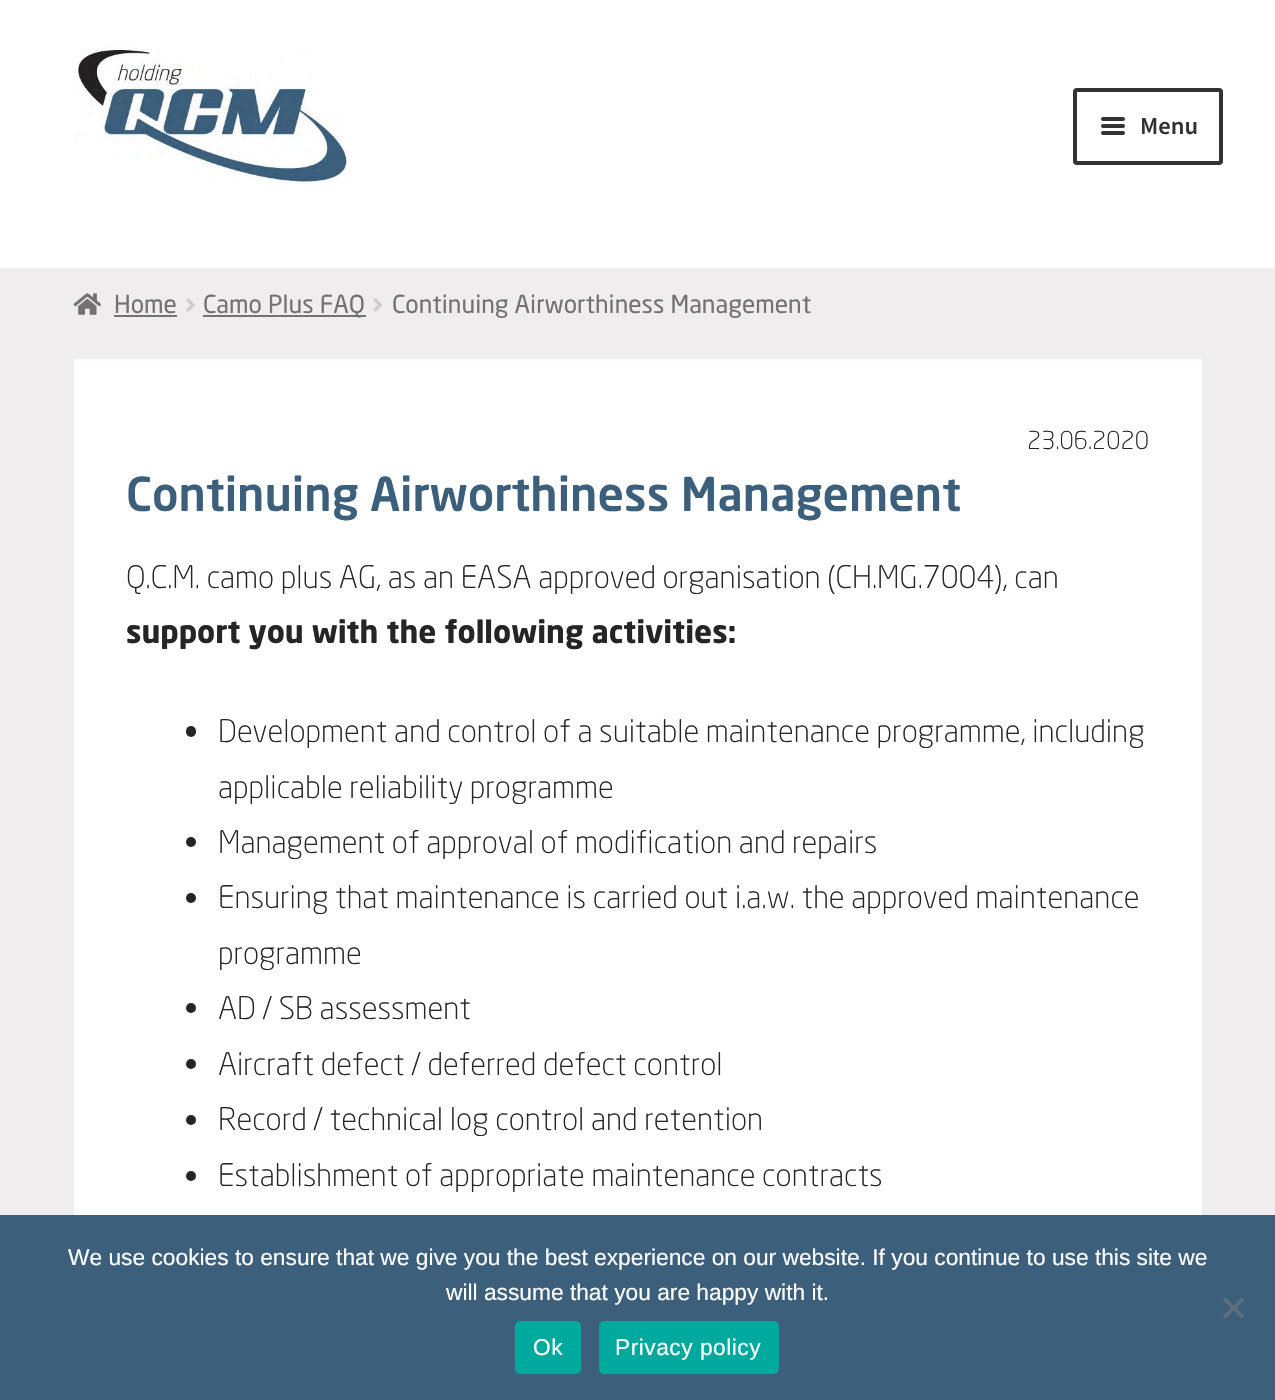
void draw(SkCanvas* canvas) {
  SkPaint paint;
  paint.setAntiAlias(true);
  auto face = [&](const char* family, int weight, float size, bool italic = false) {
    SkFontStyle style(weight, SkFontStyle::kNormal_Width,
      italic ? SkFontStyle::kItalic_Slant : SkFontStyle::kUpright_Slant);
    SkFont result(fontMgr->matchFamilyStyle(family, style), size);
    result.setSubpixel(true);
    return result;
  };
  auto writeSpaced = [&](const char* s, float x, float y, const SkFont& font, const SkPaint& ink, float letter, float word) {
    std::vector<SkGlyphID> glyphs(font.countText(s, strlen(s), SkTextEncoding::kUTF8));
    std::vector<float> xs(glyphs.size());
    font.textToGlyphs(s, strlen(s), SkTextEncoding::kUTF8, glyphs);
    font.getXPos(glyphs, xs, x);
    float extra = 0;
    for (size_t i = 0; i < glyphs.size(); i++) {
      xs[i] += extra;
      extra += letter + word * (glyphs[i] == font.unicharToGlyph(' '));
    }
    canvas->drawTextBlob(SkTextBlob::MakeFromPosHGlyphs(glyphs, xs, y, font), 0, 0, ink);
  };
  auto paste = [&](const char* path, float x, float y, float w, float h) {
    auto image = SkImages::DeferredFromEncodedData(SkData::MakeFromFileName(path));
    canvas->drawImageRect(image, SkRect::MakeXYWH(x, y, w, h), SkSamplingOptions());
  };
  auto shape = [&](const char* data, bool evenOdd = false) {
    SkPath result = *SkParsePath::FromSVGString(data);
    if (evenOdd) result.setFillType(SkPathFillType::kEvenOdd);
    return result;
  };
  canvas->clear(0xffffffff);
  paste("img/1.png", 74, 46, 277, 139);
  paint.setStroke(true);
  paint.setStrokeWidth(4);
  paint.setColor(0xff333333);
  canvas->drawRoundRect(SkRect::MakeXYWH(1075, 90, 146, 73), 2, 2, paint);
  paint.setStroke(false);
  canvas->drawRoundRect(SkRect::MakeXYWH(1101, 117, 24, 4), 2, 2, paint);
  canvas->drawRoundRect(SkRect::MakeXYWH(1101, 124, 24, 4), 2, 2, paint);
  canvas->drawRoundRect(SkRect::MakeXYWH(1101, 131, 24, 4), 2, 2, paint);
  paint.setColor(0xffefeded);
  canvas->drawRect(SkRect::MakeXYWH(0, 268, 1275, 947), paint);
  paste("img/2.png", 73, 293, 28, 22);
  paint.setColor(0xff727272);
  canvas->drawRect(SkRect::MakeXYWH(114, 315, 63, 2), paint);
  paste("img/3.png", 186, 298, 9, 14);
  canvas->drawRect(SkRect::MakeXYWH(203, 315, 163, 2), paint);
  paste("img/4.png", 373, 298, 9, 14);
  paint.setColor(0xffffffff);
  canvas->drawRect(SkRect::MakeXYWH(74, 359, 1128, 856), paint);
  paint.setColor(0xff252525);
  canvas->drawRoundRect(SkRect::MakeXYWH(186, 726, 10, 11), 5, 5, paint);
  canvas->drawCircle(191, 842, 5, paint);
  canvas->drawCircle(191, 898, 5, paint);
  canvas->drawCircle(191, 1008, 5, paint);
  canvas->drawCircle(191, 1064, 5, paint);
  canvas->drawCircle(191, 1120, 5, paint);
  canvas->drawCircle(191, 1176, 5, paint);
  paint.setColor(0xff3c5f7c);
  canvas->drawRect(SkRect::MakeXYWH(0, 1215, 1275, 185), paint);
  paint.setColor(0xff5e707e);
  canvas->drawPath(shape("M1242 1297.5L1244.5 1300L1225.5 1318.5L1223 1316Z"), paint);
  canvas->drawPath(shape("M1223 1300L1225.5 1297.5L1244.5 1316L1242 1318.5Z"), paint);
  paint.setColor(0xff00a99d);
  canvas->drawRoundRect(SkRect::MakeXYWH(515, 1321, 66, 53), 5, 5, paint);
  canvas->drawRoundRect(SkRect::MakeXYWH(599, 1321, 180, 53), 5, 5, paint);
  auto f0 = face("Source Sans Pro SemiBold", 600, 24.5f);
  paint.setColor(0xff333333);
  canvas->drawString("Menu", 1140, 134, f0, paint);
  auto f1 = face("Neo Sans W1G", 400, 24.5f);
  paint.setColor(0xff727272);
  {
    const struct { const char* s; float x, y; } items[] = {
      {"Home", 114, 313},
      {"Camo Plus FAQ", 203, 313},
      {"Continuing Airworthiness Management", 392, 313},
    };
    for (auto [s, x, y] : items) {
      canvas->drawString(s, x, y, f1, paint);
    }
  }
  auto f2 = face("Neo Sans W1G", 300, 24.5f);
  paint.setColor(0xff252525);
  canvas->drawString("23.06.2020", 1027, 449, f2, paint);
  auto f3 = face("Neo Sans W1G", 500, 46.25f);
  paint.setColor(0xff3c5f7c);
  canvas->drawString("Continuing Airworthiness Management", 126, 511, f3, paint);
  auto f4 = face("Neo Sans W1G", 300, 30.8f);
  paint.setColor(0xff252525);
  canvas->drawString("Q.C.M. camo plus AG, as an EASA approved organisation (CH.MG.7004), can", 126, 588, f4, paint);
  auto f5 = face("Neo Sans W1G", 700, 30.8f);
  canvas->drawString("support you with the following activities:", 126, 643, f5, paint);
  {
    const struct { const char* s; float x, y; } items[] = {
      {"Development and control of a suitable maintenance programme, including", 218, 742},
      {"applicable reliability programme", 218, 798},
      {"Management of approval of modification and repairs", 218, 853},
      {"Ensuring that maintenance is carried out i.a.w. the approved maintenance", 218, 908},
      {"programme", 218, 964},
      {"AD / SB assessment", 218, 1019},
      {"Aircraft defect / deferred defect control", 218, 1075},
      {"Record / technical log control and retention", 218, 1130},
      {"Establishment of appropriate maintenance contracts", 218, 1186},
    };
    for (auto [s, x, y] : items) {
      canvas->drawString(s, x, y, f4, paint);
    }
  }
  auto f6 = face("Liberation Sans", 400, 22.75f);
  paint.setColor(0xffffffff);
  canvas->drawString("We use cookies to ensure that we give you the best experience on our website. If you continue to use this site we", 68, 1265, f6, paint);
  canvas->drawString("will assume that you are happy with it.", 446, 1300, f6, paint);
  writeSpaced("Ok", 533, 1355, f6, paint, 0.5f, 0);
  writeSpaced("Privacy policy", 615, 1355, f6, paint, 0.5f, 0);
}
